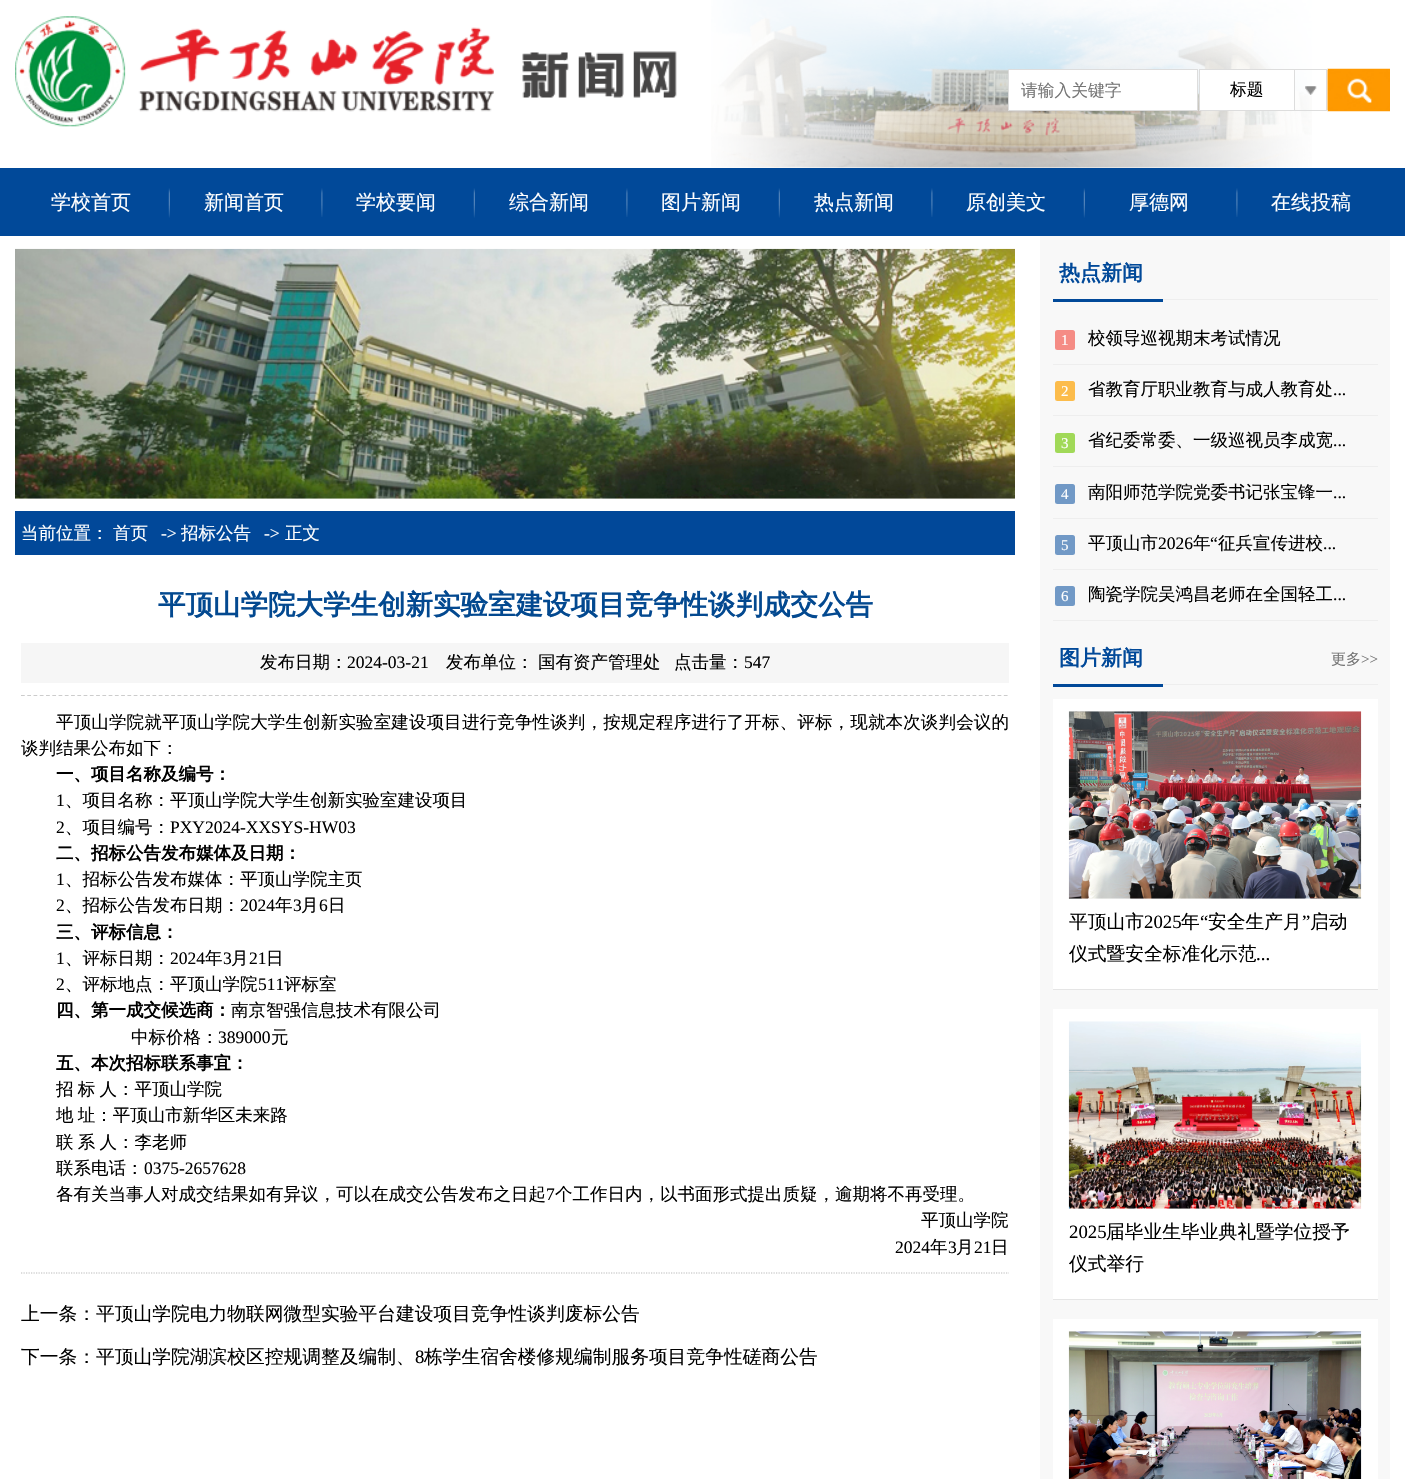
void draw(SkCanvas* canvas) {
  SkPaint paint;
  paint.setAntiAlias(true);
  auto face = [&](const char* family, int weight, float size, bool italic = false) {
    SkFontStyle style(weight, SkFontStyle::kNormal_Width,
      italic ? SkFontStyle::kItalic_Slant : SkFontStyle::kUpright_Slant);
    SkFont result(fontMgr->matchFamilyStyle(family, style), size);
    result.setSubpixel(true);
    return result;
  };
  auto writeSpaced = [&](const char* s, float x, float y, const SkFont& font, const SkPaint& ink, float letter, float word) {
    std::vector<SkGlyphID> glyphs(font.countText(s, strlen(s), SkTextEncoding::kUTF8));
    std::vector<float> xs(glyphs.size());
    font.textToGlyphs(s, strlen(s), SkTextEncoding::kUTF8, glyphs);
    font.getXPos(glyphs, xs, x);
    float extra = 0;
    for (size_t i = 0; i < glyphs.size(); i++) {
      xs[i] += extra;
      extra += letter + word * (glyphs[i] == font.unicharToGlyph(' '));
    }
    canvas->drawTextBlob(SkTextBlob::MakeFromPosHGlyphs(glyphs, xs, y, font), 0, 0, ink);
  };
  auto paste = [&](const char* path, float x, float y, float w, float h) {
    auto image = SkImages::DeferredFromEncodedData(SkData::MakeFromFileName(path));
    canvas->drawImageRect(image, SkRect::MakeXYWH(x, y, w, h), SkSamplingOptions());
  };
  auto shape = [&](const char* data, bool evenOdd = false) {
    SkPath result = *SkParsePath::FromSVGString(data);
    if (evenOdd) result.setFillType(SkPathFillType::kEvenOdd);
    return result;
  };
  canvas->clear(0xffffffff);
  paste("img/1.png", 711, 0, 601, 168);
  paste("img/2.png", 15, 16, 662, 111);
  paint.setColor(0xffffffff);
  canvas->drawRect(SkRect::MakeXYWH(1008.5f, 69.5f, 189, 41), paint);
  paint.setStroke(true);
  paint.setStrokeWidth(1);
  paint.setColor(0xffdddddd);
  canvas->drawRect(SkRect::MakeXYWH(1008.5f, 69.5f, 189, 41), paint);
  paint.setStroke(false);
  paint.setColor(0xffffffff);
  canvas->drawRect(SkRect::MakeXYWH(1199.5f, 69.5f, 95, 41), paint);
  paint.setStroke(true);
  paint.setColor(0xffdddddd);
  canvas->drawRect(SkRect::MakeXYWH(1199.5f, 69.5f, 95, 41), paint);
  paste("img/3.png", 1305, 86, 12, 9);
  paste("img/4.png", 1327, 68, 63, 44);
  paint.setStroke(false);
  {
    const struct { float x, y, w, h; SkColor color; } items[] = {
      {1295, 69, 33, 1, 0xffdddddd},
      {1326, 69, 1, 42, 0xffdddddd},
      {1295, 110, 33, 1, 0xffdddddd},
      {0, 168, 1405, 68, 0xff014999},
    };
    for (auto [x, y, w, h, color] : items) {
      paint.setColor(color);
      canvas->drawRect(SkRect::MakeXYWH(x, y, w, h), paint);
    }
  }
  paste("img/5.png", 168, 188, 2, 30);
  paste("img/6.png", 321, 188, 2, 29);
  paste("img/5.png", 473, 188, 2, 30);
  paste("img/6.png", 626, 188, 2, 29);
  paste("img/5.png", 778, 188, 2, 30);
  paste("img/6.png", 931, 188, 2, 29);
  paste("img/5.png", 1083, 188, 2, 30);
  paste("img/6.png", 1236, 188, 2, 29);
  paint.setColor(0xfff8f8f8);
  canvas->drawRect(SkRect::MakeXYWH(1040, 236, 350, 1243), paint);
  paste("img/7.png", 15, 248, 1000, 251);
  paint.setColor(0xff014899);
  canvas->drawRect(SkRect::MakeXYWH(15, 511, 1000, 44), paint);
  paint.setStroke(true);
  paint.setStrokeWidth(1.2f);
  paint.setColor(0xffcccccc);
  paint.setPathEffect(SkDashPathEffect::Make({{3.75f, 2.51f}}, 0));
  canvas->drawPath(shape("M21 695.5H1009"), paint);
  paint.setPathEffect(nullptr);
  paint.setStroke(false);
  paint.setColor(0xfff6f6f6);
  canvas->drawRect(SkRect::MakeXYWH(21, 643, 988, 40), paint);
  paint.setStroke(true);
  paint.setColor(0xffbbbbbb);
  paint.setPathEffect(SkDashPathEffect::Make({{1.25f, 1.25f}}, 0));
  canvas->drawPath(shape("M21 1273H1009"), paint);
  paint.setPathEffect(nullptr);
  paint.setStroke(false);
  {
    const struct { float x, y, w, h; SkColor color; } items[] = {
      {1163, 299, 215, 1, 0xffeeeeee},
      {1053, 299, 110, 3, 0xff014999},
      {1053, 364, 325, 1, 0xffeeeeee},
    };
    for (auto [x, y, w, h, color] : items) {
      paint.setColor(color);
      canvas->drawRect(SkRect::MakeXYWH(x, y, w, h), paint);
    }
  }
  paint.setColor(0xfff58c85);
  canvas->drawRoundRect(SkRect::MakeXYWH(1055, 330, 20, 20), 2.5f, 2.5f, paint);
  paint.setColor(0xffeeeeee);
  canvas->drawRect(SkRect::MakeXYWH(1053, 415, 325, 1), paint);
  paint.setColor(0xfffcbc4b);
  canvas->drawRoundRect(SkRect::MakeXYWH(1055, 381, 20, 20), 2.5f, 2.5f, paint);
  paint.setColor(0xffeeeeee);
  canvas->drawRect(SkRect::MakeXYWH(1053, 466, 325, 1), paint);
  paint.setColor(0xffa1d958);
  canvas->drawRoundRect(SkRect::MakeXYWH(1055, 433, 20, 20), 2.5f, 2.5f, paint);
  paint.setColor(0xffeeeeee);
  canvas->drawRect(SkRect::MakeXYWH(1053, 518, 325, 1), paint);
  paint.setColor(0xff7199c6);
  canvas->drawRoundRect(SkRect::MakeXYWH(1055, 484, 20, 20), 2.5f, 2.5f, paint);
  paint.setColor(0xffeeeeee);
  canvas->drawRect(SkRect::MakeXYWH(1053, 569, 325, 1), paint);
  paint.setColor(0xff7199c6);
  canvas->drawRoundRect(SkRect::MakeXYWH(1055, 535, 20, 20), 2.5f, 2.5f, paint);
  paint.setColor(0xffeeeeee);
  canvas->drawRect(SkRect::MakeXYWH(1053, 620, 325, 1), paint);
  paint.setColor(0xff7199c6);
  canvas->drawRoundRect(SkRect::MakeXYWH(1055, 586, 20, 20), 2.5f, 2.5f, paint);
  {
    const struct { float x, y, w, h; SkColor color; } items[] = {
      {1163, 684, 215, 1, 0xffeeeeee},
      {1053, 684, 110, 3, 0xff014999},
      {1053, 699, 325, 290, 0xffffffff},
      {1053, 989, 325, 1, 0xffe5e5e5},
    };
    for (auto [x, y, w, h, color] : items) {
      paint.setColor(color);
      canvas->drawRect(SkRect::MakeXYWH(x, y, w, h), paint);
    }
  }
  paste("img/8.png", 1068, 711, 294, 188);
  paint.setColor(0xffffffff);
  canvas->drawRect(SkRect::MakeXYWH(1053, 1009, 325, 290), paint);
  paint.setColor(0xffe5e5e5);
  canvas->drawRect(SkRect::MakeXYWH(1053, 1299, 325, 1), paint);
  paste("img/9.png", 1068, 1021, 294, 188);
  paint.setColor(0xffffffff);
  canvas->drawRect(SkRect::MakeXYWH(1053, 1319, 325, 160), paint);
  paste("img/10.png", 1068, 1331, 294, 148);
  auto f0 = face("WenQuanYi Zen Hei", 500, 16.75f);
  paint.setColor(0xff757575);
  canvas->drawString("请输入关键字", 1021, 96, f0, paint);
  paint.setColor(0xff000000);
  canvas->drawString("标题", 1230, 95, f0, paint);
  auto f1 = face("WenQuanYi Zen Hei", 500, 20);
  paint.setColor(0xffffffff);
  {
    const struct { const char* s; float x, y; } items[] = {
      {"学校首页", 51, 209},
      {"新闻首页", 204, 209},
      {"学校要闻", 356, 209},
      {"综合新闻", 509, 209},
      {"图片新闻", 661, 209},
      {"热点新闻", 814, 209},
      {"原创美文", 966, 209},
      {"厚德网", 1129, 209},
      {"在线投稿", 1271, 209},
    };
    for (auto [s, x, y] : items) {
      canvas->drawString(s, x, y, f1, paint);
    }
  }
  auto f2 = face("WenQuanYi Zen Hei", 500, 17.5f);
  canvas->drawString("当前位置：", 21, 539, f2, paint);
  canvas->drawString("首页", 113, 539, f2, paint);
  auto f3 = face("Liberation Serif", 400, 17.5f);
  canvas->drawString("->", 161, 539, f3, paint);
  canvas->drawString("招标公告", 181, 539, f2, paint);
  canvas->drawString("->", 264, 539, f3, paint);
  canvas->drawString("正文", 285, 539, f2, paint);
  auto f4 = face("WenQuanYi Zen Hei", 700, 27.5f);
  paint.setColor(0xff034990);
  canvas->drawString("平顶山学院大学生创新实验室建设项目竞争性谈判成交公告", 158, 614, f4, paint);
  paint.setColor(0xff000000);
  canvas->drawString("发布日期：", 260, 668, f2, paint);
  canvas->drawString("2024-03-21", 347, 668, f3, paint);
  {
    const struct { const char* s; float x, y; } items[] = {
      {"发布单位：", 446, 668},
      {"国有资产管理处", 538, 668},
      {"点击量：", 674, 668},
    };
    for (auto [s, x, y] : items) {
      canvas->drawString(s, x, y, f2, paint);
    }
  }
  canvas->drawString("547", 744, 668, f3, paint);
  writeSpaced("平顶山学院就平顶山学院大学生创新实验室建设项目进行竞争性谈判，按规定程序进行了开标、评标，现就本次谈判会议的", 56, 728, f2, paint, 0.15f, 0);
  canvas->drawString("谈判结果公布如下：", 21, 754, f2, paint);
  auto f5 = face("WenQuanYi Zen Hei", 700, 17.5f);
  canvas->drawString("一、项目名称及编号：", 56, 780, f5, paint);
  canvas->drawString("1", 56, 806, f3, paint);
  canvas->drawString("、项目名称：平顶山学院大学生创新实验室建设项目", 65, 806, f2, paint);
  canvas->drawString("2", 56, 833, f3, paint);
  canvas->drawString("、项目编号：", 65, 833, f2, paint);
  canvas->drawString("PXY2024-XXSYS-HW03", 170, 833, f3, paint);
  canvas->drawString("二、招标公告发布媒体及日期：", 56, 859, f5, paint);
  canvas->drawString("1", 56, 885, f3, paint);
  canvas->drawString("、招标公告发布媒体：平顶山学院主页", 65, 885, f2, paint);
  canvas->drawString("2", 56, 911, f3, paint);
  canvas->drawString("、招标公告发布日期：", 65, 911, f2, paint);
  canvas->drawString("2024", 240, 911, f3, paint);
  canvas->drawString("年", 275, 911, f2, paint);
  canvas->drawString("3", 293, 911, f3, paint);
  canvas->drawString("月", 301, 911, f2, paint);
  canvas->drawString("6", 319, 911, f3, paint);
  canvas->drawString("日", 328, 911, f2, paint);
  canvas->drawString("三、评标信息：", 56, 938, f5, paint);
  canvas->drawString("1", 56, 964, f3, paint);
  canvas->drawString("、评标日期：", 65, 964, f2, paint);
  canvas->drawString("2024", 170, 964, f3, paint);
  canvas->drawString("年", 205, 964, f2, paint);
  canvas->drawString("3", 223, 964, f3, paint);
  canvas->drawString("月", 231, 964, f2, paint);
  canvas->drawString("21", 249, 964, f3, paint);
  canvas->drawString("日", 266, 964, f2, paint);
  canvas->drawString("2", 56, 990, f3, paint);
  canvas->drawString("、评标地点：平顶山学院", 65, 990, f2, paint);
  canvas->drawString("511", 258, 990, f3, paint);
  canvas->drawString("评标室", 284, 990, f2, paint);
  canvas->drawString("四、第一成交候选商：", 56, 1016, f5, paint);
  canvas->drawString("南京智强信息技术有限公司", 231, 1016, f2, paint);
  canvas->drawString("中标价格：", 131, 1043, f2, paint);
  canvas->drawString("389000", 218, 1043, f3, paint);
  canvas->drawString("元", 271, 1043, f2, paint);
  canvas->drawString("五、本次招标联系事宜：", 56, 1069, f5, paint);
  {
    const struct { const char* s; float x, y; } items[] = {
      {"招 标 人：平顶山学院", 56, 1095},
      {"地 址：平顶山市新华区未来路", 56, 1121},
      {"联 系 人：李老师", 56, 1148},
    };
    for (auto [s, x, y] : items) {
      writeSpaced(s, x, y, f2, paint, 0, -1);
    }
  }
  canvas->drawString("联系电话：", 56, 1174, f2, paint);
  canvas->drawString("0375-2657628", 144, 1174, f3, paint);
  canvas->drawString("各有关当事人对成交结果如有异议，可以在成交公告发布之日起", 56, 1200, f2, paint);
  canvas->drawString("7", 546, 1200, f3, paint);
  canvas->drawString("个工作日内，以书面形式提出质疑，逾期将不再受理。", 555, 1200, f2, paint);
  canvas->drawString("平顶山学院", 921, 1226, f2, paint);
  canvas->drawString("2024", 895, 1253, f3, paint);
  canvas->drawString("年", 930, 1253, f2, paint);
  canvas->drawString("3", 948, 1253, f3, paint);
  canvas->drawString("月", 956, 1253, f2, paint);
  canvas->drawString("21", 974, 1253, f3, paint);
  canvas->drawString("日", 991, 1253, f2, paint);
  auto f6 = face("WenQuanYi Zen Hei", 500, 18.75f);
  canvas->drawString("上一条：平顶山学院电力物联网微型实验平台建设项目竞争性谈判废标公告", 21, 1320, f6, paint);
  canvas->drawString("下一条：平顶山学院湖滨校区控规调整及编制、", 21, 1363, f6, paint);
  auto f7 = face("Liberation Serif", 400, 18.75f);
  canvas->drawString("8", 415, 1363, f7, paint);
  canvas->drawString("栋学生宿舍楼修规编制服务项目竞争性磋商公告", 424, 1363, f6, paint);
  auto f8 = face("WenQuanYi Zen Hei", 700, 21);
  paint.setColor(0xff014999);
  canvas->drawString("热点新闻", 1059, 280, f8, paint);
  auto f9 = face("Liberation Serif", 400, 15);
  paint.setColor(0xffffffff);
  canvas->drawString("1", 1061, 345, f9, paint);
  paint.setColor(0xff000000);
  canvas->drawString("校领导巡视期末考试情况", 1088, 344, f2, paint);
  paint.setColor(0xffffffff);
  canvas->drawString("2", 1061, 396, f9, paint);
  paint.setColor(0xff000000);
  canvas->drawString("省教育厅职业教育与成人教育处", 1088, 395, f2, paint);
  canvas->drawString("...", 1333, 395, f3, paint);
  paint.setColor(0xffffffff);
  canvas->drawString("3", 1061, 448, f9, paint);
  paint.setColor(0xff000000);
  canvas->drawString("省纪委常委、一级巡视员李成宽", 1088, 446, f2, paint);
  canvas->drawString("...", 1333, 446, f3, paint);
  paint.setColor(0xffffffff);
  canvas->drawString("4", 1061, 499, f9, paint);
  paint.setColor(0xff000000);
  canvas->drawString("南阳师范学院党委书记张宝锋一", 1088, 498, f2, paint);
  canvas->drawString("...", 1333, 498, f3, paint);
  canvas->drawString("平顶山市", 1088, 549, f2, paint);
  canvas->drawString("2026", 1158, 549, f3, paint);
  canvas->drawString("年", 1193, 549, f2, paint);
  canvas->drawString("“", 1210, 549, f3, paint);
  canvas->drawString("征兵宣传进校", 1218, 549, f2, paint);
  paint.setColor(0xffffffff);
  canvas->drawString("5", 1061, 550, f9, paint);
  paint.setColor(0xff000000);
  canvas->drawString("...", 1323, 549, f3, paint);
  paint.setColor(0xffffffff);
  canvas->drawString("6", 1061, 601, f9, paint);
  paint.setColor(0xff000000);
  canvas->drawString("陶瓷学院吴鸿昌老师在全国轻工", 1088, 600, f2, paint);
  canvas->drawString("...", 1333, 600, f3, paint);
  paint.setColor(0xff014999);
  canvas->drawString("图片新闻", 1059, 665, f8, paint);
  auto f10 = face("WenQuanYi Zen Hei", 500, 15);
  paint.setColor(0xff757575);
  canvas->drawString("更多", 1331, 664, f10, paint);
  canvas->drawString(">>", 1361, 664, f9, paint);
  paint.setColor(0xff000000);
  canvas->drawString("平顶山市", 1069, 928, f6, paint);
  canvas->drawString("2025", 1144, 928, f7, paint);
  canvas->drawString("年", 1181, 928, f6, paint);
  canvas->drawString("“", 1200, 928, f7, paint);
  canvas->drawString("安全生产月", 1208, 928, f6, paint);
  canvas->drawString("”", 1302, 928, f7, paint);
  canvas->drawString("启动", 1310, 928, f6, paint);
  canvas->drawString("仪式暨安全标准化示范", 1069, 960, f6, paint);
  canvas->drawString("...", 1256, 960, f7, paint);
  canvas->drawString("2025", 1069, 1238, f7, paint);
  canvas->drawString("届毕业生毕业典礼暨学位授予", 1106, 1238, f6, paint);
  canvas->drawString("仪式举行", 1069, 1270, f6, paint);
}
